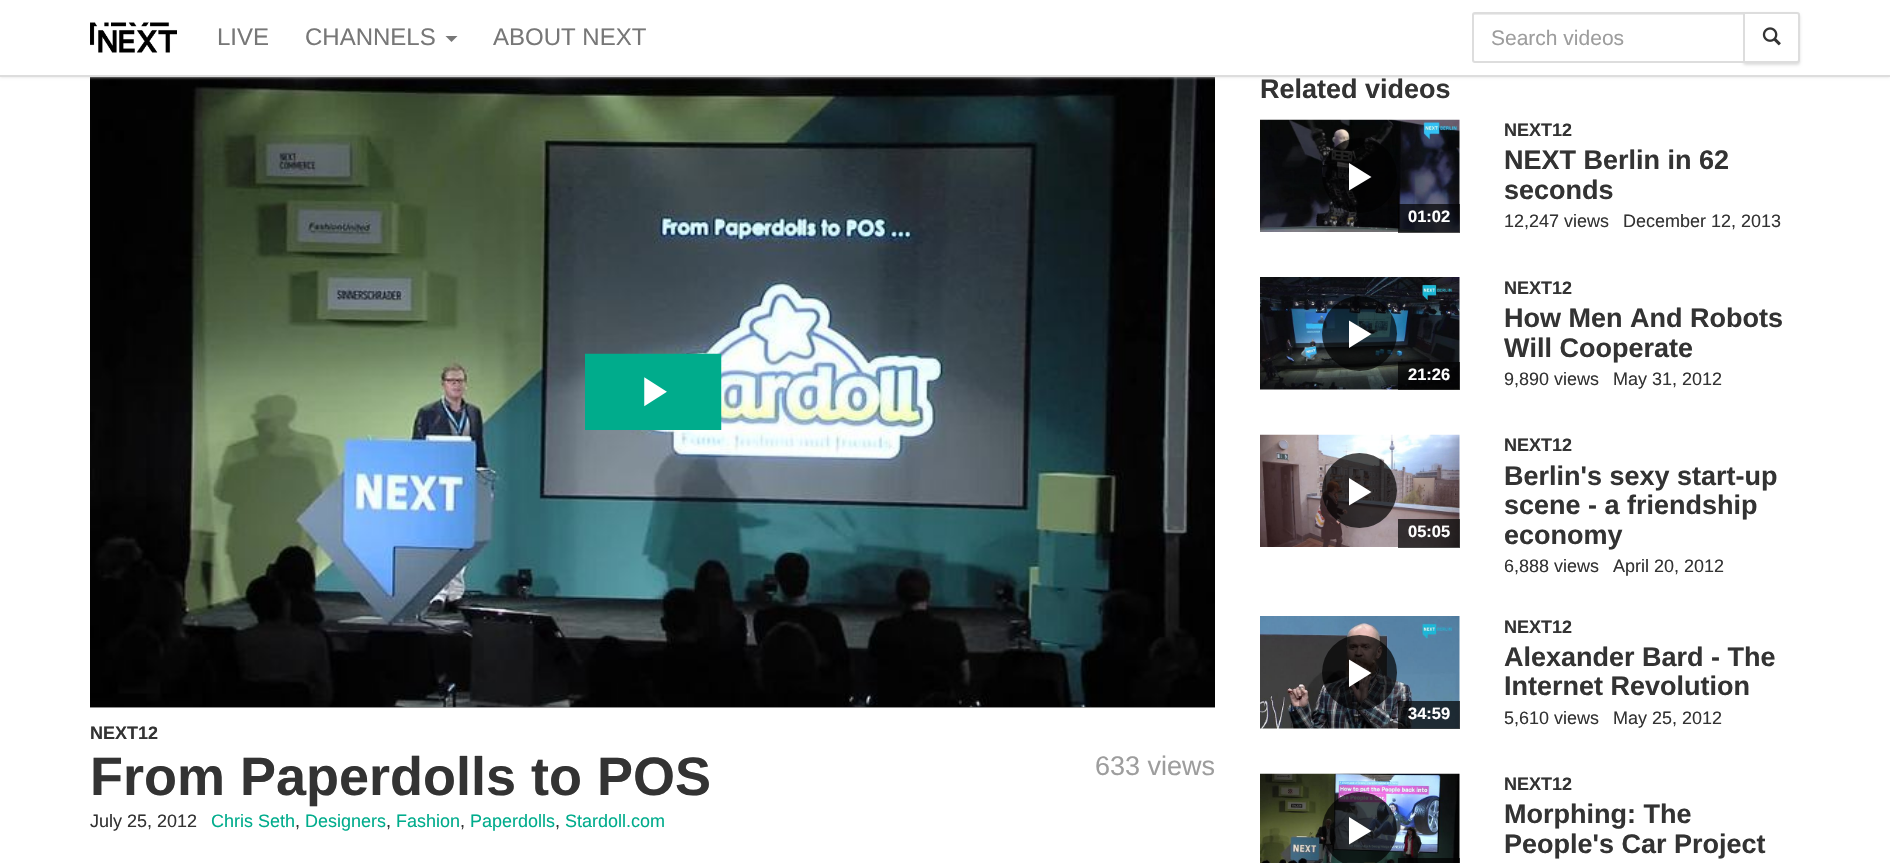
void draw(SkCanvas* canvas) {
  SkPaint paint;
  paint.setAntiAlias(true);
  auto face = [&](const char* family, int weight, float size, bool italic = false) {
    SkFontStyle style(weight, SkFontStyle::kNormal_Width,
      italic ? SkFontStyle::kItalic_Slant : SkFontStyle::kUpright_Slant);
    SkFont result(fontMgr->matchFamilyStyle(family, style), size);
    result.setSubpixel(true);
    return result;
  };
  auto paste = [&](const char* path, float x, float y, float w, float h) {
    auto image = SkImages::DeferredFromEncodedData(SkData::MakeFromFileName(path));
    canvas->drawImageRect(image, SkRect::MakeXYWH(x, y, w, h), SkSamplingOptions());
  };
  auto shape = [&](const char* data, bool evenOdd = false) {
    SkPath result = *SkParsePath::FromSVGString(data);
    if (evenOdd) result.setFillType(SkPathFillType::kEvenOdd);
    return result;
  };
  canvas->clear(0xffffffff);
  paste("img/3.png", 90, 77, 1125, 631);
  paint.setColor(0xffdddddd);
  paint.setMaskFilter(SkMaskFilter::MakeBlur(kNormal_SkBlurStyle, 1.5f));
  canvas->drawRect(SkRect::MakeXYWH(0, 0, 1890, 77), paint);
  paint.setMaskFilter(nullptr);
  paint.setColor(0xffffffff);
  canvas->drawRect(SkRect::MakeXYWH(0, 0, 1890, 75), paint);
  paint.setColor(0xffdddddd);
  canvas->drawRect(SkRect::MakeXYWH(0, 75, 1890, 2), paint);
  paste("img/1.png", 90, 22, 87, 31);
  paint.setColor(0xff777777);
  canvas->drawPath(shape("M445.5 36H457.5L451.5 42Z"), paint);
  paint.setColor(0xffdddddd);
  paint.setMaskFilter(SkMaskFilter::MakeBlur(kNormal_SkBlurStyle, 1.5f));
  canvas->drawRoundRect(SkRect::MakeXYWH(1743, 14, 57, 51), 3, 3, paint);
  paint.setMaskFilter(nullptr);
  paint.setColor(0xffffffff);
  canvas->drawPath(shape("M1744 13H1797C1798 13 1799 14 1799 15V60C1799 61 1798 62 1797 62H1744Z"), paint);
  paint.setStroke(true);
  paint.setStrokeWidth(2);
  paint.setColor(0xffdddddd);
  canvas->drawPath(shape("M1744 13H1797C1798 13 1799 14 1799 15V60C1799 61 1798 62 1797 62H1744Z"), paint);
  paint.setStroke(false);
  paint.setColor(0xffffffff);
  canvas->drawPath(shape("M1475 12H1745V63H1475C1473.5 63 1472 61.5 1472 60V15C1472 13.5 1473.5 12 1475 12Z"), paint);
  paint.setColor(0xffececec);
  canvas->drawPath(shape("M1474 14L1473 15H1743V14Z"), paint);
  paint.setStroke(true);
  paint.setColor(0xffdddddd);
  canvas->drawPath(shape("M1475 13H1744V62H1475C1474 62 1473 61 1473 60V15C1473 14 1474 13 1475 13Z"), paint);
  paste("img/2.png", 1762, 27, 19, 19);
  paste("img/4.png", 1260, 119, 200, 113);
  paint.setStroke(false);
  paint.setColor(0xb3000000);
  canvas->drawCircle(1359.5f, 175.5f, 37.5f, paint);
  paint.setColor(0xffffffff);
  canvas->drawPath(shape("M1349 190.5L1371.5 177L1349 163Z"), paint);
  paint.setColor(0xb3000000);
  canvas->drawRect(SkRect::MakeXYWH(1398, 204, 62, 29), paint);
  paste("img/5.png", 1260, 277, 200, 113);
  canvas->drawCircle(1359.5f, 333.5f, 37.5f, paint);
  paint.setColor(0xffffffff);
  canvas->drawPath(shape("M1349 348L1371.5 334L1349 320.5Z"), paint);
  paint.setColor(0xb3000000);
  canvas->drawRect(SkRect::MakeXYWH(1398, 362, 62, 28), paint);
  paste("img/6.png", 1260, 434, 200, 113);
  canvas->drawCircle(1359.5f, 490.5f, 37.5f, paint);
  paint.setColor(0xffffffff);
  canvas->drawPath(shape("M1349 505.5L1371.5 492L1349 478Z"), paint);
  paint.setColor(0xb3000000);
  canvas->drawRect(SkRect::MakeXYWH(1398, 519, 62, 29), paint);
  paste("img/7.png", 1260, 616, 200, 113);
  canvas->drawCircle(1359.5f, 672.5f, 37.5f, paint);
  paint.setColor(0xffffffff);
  canvas->drawPath(shape("M1349 687L1371.5 673L1349 659.5Z"), paint);
  paint.setColor(0xb3000000);
  canvas->drawRect(SkRect::MakeXYWH(1398, 701, 62, 28), paint);
  paste("img/8.png", 1260, 773, 200, 90);
  canvas->drawCircle(1359.5f, 829.5f, 37.5f, paint);
  paint.setColor(0xffffffff);
  canvas->drawPath(shape("M1349 844.5L1371.5 831L1349 817Z"), paint);
  paint.setColor(0xb3000000);
  canvas->drawRect(SkRect::MakeXYWH(1398, 858, 62, 5), paint);
  auto f0 = face("Liberation Sans", 400, 24);
  paint.setColor(0xff777777);
  {
    const struct { const char* s; float x, y; } items[] = {
      {"LIVE", 217, 45},
      {"CHANNELS", 305, 45},
      {"ABOUT NEXT", 493, 45},
    };
    for (auto [s, x, y] : items) {
      canvas->drawString(s, x, y, f0, paint);
    }
  }
  auto f1 = face("Liberation Sans", 400, 21);
  paint.setColor(0xff9d9d9d);
  canvas->drawString("Search videos", 1491, 45, f1, paint);
  auto f2 = face("Liberation Sans", 700, 18);
  paint.setColor(0xff333333);
  canvas->drawString("NEXT12", 90, 739, f2, paint);
  auto f3 = face("Liberation Sans", 700, 54);
  canvas->drawString("From Paperdolls to POS", 90, 795, f3, paint);
  auto f4 = face("Liberation Sans", 400, 27);
  paint.setColor(0xff9d9d9d);
  canvas->drawString("633 views", 1095, 775, f4, paint);
  auto f5 = face("Liberation Sans", 400, 18);
  paint.setColor(0xff333333);
  canvas->drawString("July 25, 2012", 90, 827, f5, paint);
  paint.setColor(0xff00ac8c);
  canvas->drawString("Chris Seth", 211, 827, f5, paint);
  paint.setColor(0xff333333);
  canvas->drawString(",", 295, 827, f5, paint);
  paint.setColor(0xff00ac8c);
  canvas->drawString("Designers", 305, 827, f5, paint);
  paint.setColor(0xff333333);
  canvas->drawString(",", 386, 827, f5, paint);
  paint.setColor(0xff00ac8c);
  canvas->drawString("Fashion", 396, 827, f5, paint);
  paint.setColor(0xff333333);
  canvas->drawString(",", 460, 827, f5, paint);
  paint.setColor(0xff00ac8c);
  canvas->drawString("Paperdolls", 470, 827, f5, paint);
  paint.setColor(0xff333333);
  canvas->drawString(",", 555, 827, f5, paint);
  paint.setColor(0xff00ac8c);
  canvas->drawString("Stardoll.com", 565, 827, f5, paint);
  auto f6 = face("Liberation Sans", 700, 27);
  paint.setColor(0xff333333);
  canvas->drawString("Related videos", 1260, 98, f6, paint);
  auto f7 = face("Liberation Sans", 700, 16.5f);
  paint.setColor(0xffffffff);
  canvas->drawString("01:02", 1408, 222, f7, paint);
  paint.setColor(0xff333333);
  canvas->drawString("NEXT12", 1504, 136, f2, paint);
  canvas->drawString("NEXT Berlin in 62", 1504, 169, f6, paint);
  canvas->drawString("seconds", 1504, 199, f6, paint);
  canvas->drawString("12,247 views", 1504, 227, f5, paint);
  canvas->drawString("December 12, 2013", 1623, 227, f5, paint);
  paint.setColor(0xffffffff);
  canvas->drawString("21:26", 1408, 380, f7, paint);
  paint.setColor(0xff333333);
  canvas->drawString("NEXT12", 1504, 294, f2, paint);
  canvas->drawString("How Men And Robots", 1504, 327, f6, paint);
  canvas->drawString("Will Cooperate", 1504, 357, f6, paint);
  canvas->drawString("9,890 views", 1504, 385, f5, paint);
  canvas->drawString("May 31, 2012", 1613, 385, f5, paint);
  paint.setColor(0xffffffff);
  canvas->drawString("05:05", 1408, 537, f7, paint);
  paint.setColor(0xff333333);
  canvas->drawString("NEXT12", 1504, 451, f2, paint);
  {
    const struct { const char* s; float x, y; } items[] = {
      {"Berlin's sexy start-up", 1504, 485},
      {"scene - a friendship", 1504, 514},
      {"economy", 1504, 544},
    };
    for (auto [s, x, y] : items) {
      canvas->drawString(s, x, y, f6, paint);
    }
  }
  canvas->drawString("6,888 views", 1504, 572, f5, paint);
  canvas->drawString("April 20, 2012", 1613, 572, f5, paint);
  paint.setColor(0xffffffff);
  canvas->drawString("34:59", 1408, 719, f7, paint);
  paint.setColor(0xff333333);
  canvas->drawString("NEXT12", 1504, 633, f2, paint);
  canvas->drawString("Alexander Bard - The", 1504, 666, f6, paint);
  canvas->drawString("Internet Revolution", 1504, 695, f6, paint);
  canvas->drawString("5,610 views", 1504, 724, f5, paint);
  canvas->drawString("May 25, 2012", 1613, 724, f5, paint);
  canvas->drawString("NEXT12", 1504, 790, f2, paint);
  canvas->drawString("Morphing: The", 1504, 823, f6, paint);
  canvas->drawString("People's Car Project", 1504, 853, f6, paint);
}
